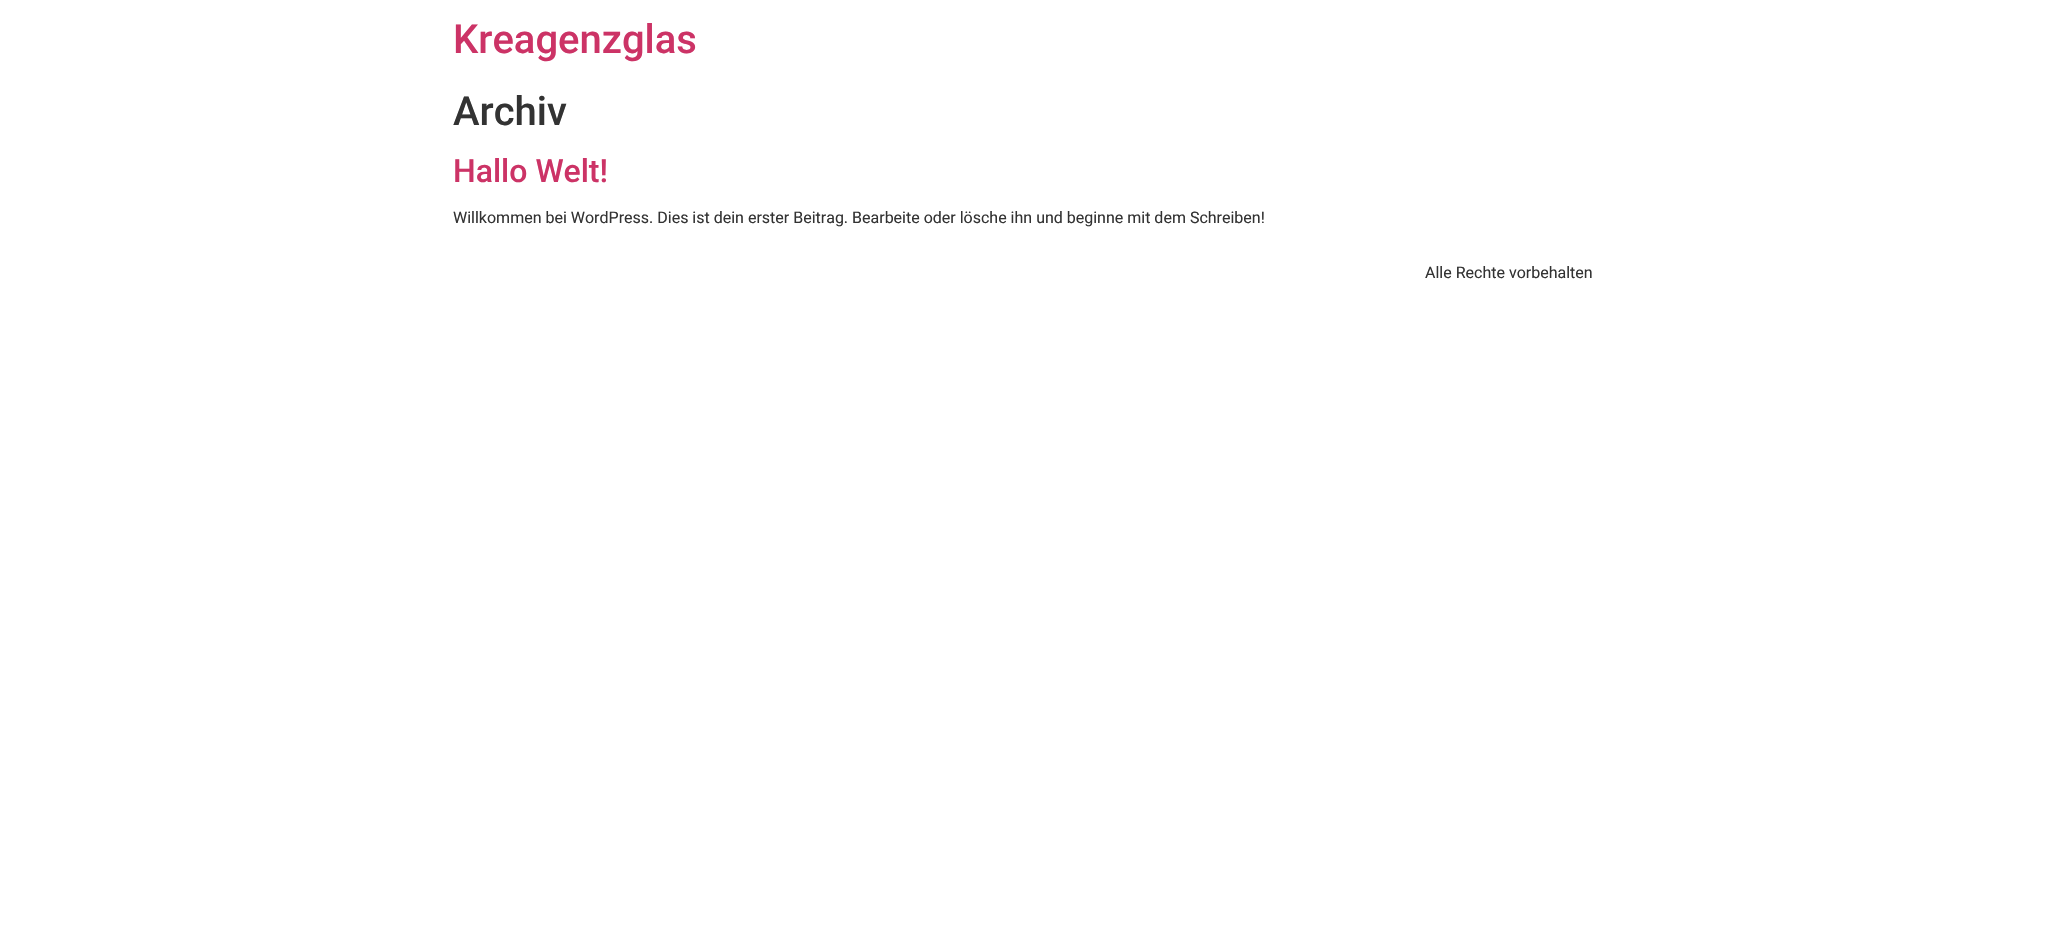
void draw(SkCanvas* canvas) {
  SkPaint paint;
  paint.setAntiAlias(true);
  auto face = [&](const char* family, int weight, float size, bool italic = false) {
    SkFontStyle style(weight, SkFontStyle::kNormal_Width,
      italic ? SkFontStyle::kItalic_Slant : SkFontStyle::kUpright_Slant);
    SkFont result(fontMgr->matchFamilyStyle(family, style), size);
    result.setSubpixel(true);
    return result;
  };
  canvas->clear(0xffffffff);
  auto f0 = face("Roboto", 500, 40);
  paint.setColor(0xffcc3366);
  canvas->drawString("Kreagenzglas", 453, 53, f0, paint);
  paint.setColor(0xff333333);
  canvas->drawString("Archiv", 453, 125, f0, paint);
  auto f1 = face("Roboto", 500, 32);
  paint.setColor(0xffcc3366);
  canvas->drawString("Hallo Welt!", 453, 182, f1, paint);
  auto f2 = face("Roboto", 400, 16);
  paint.setColor(0xff333333);
  canvas->drawString("Willkommen bei WordPress. Dies ist dein erster Beitrag. Bearbeite oder lösche ihn und beginne mit dem Schreiben!", 453, 223, f2, paint);
  canvas->drawString("Alle Rechte vorbehalten", 1425, 278, f2, paint);
}
